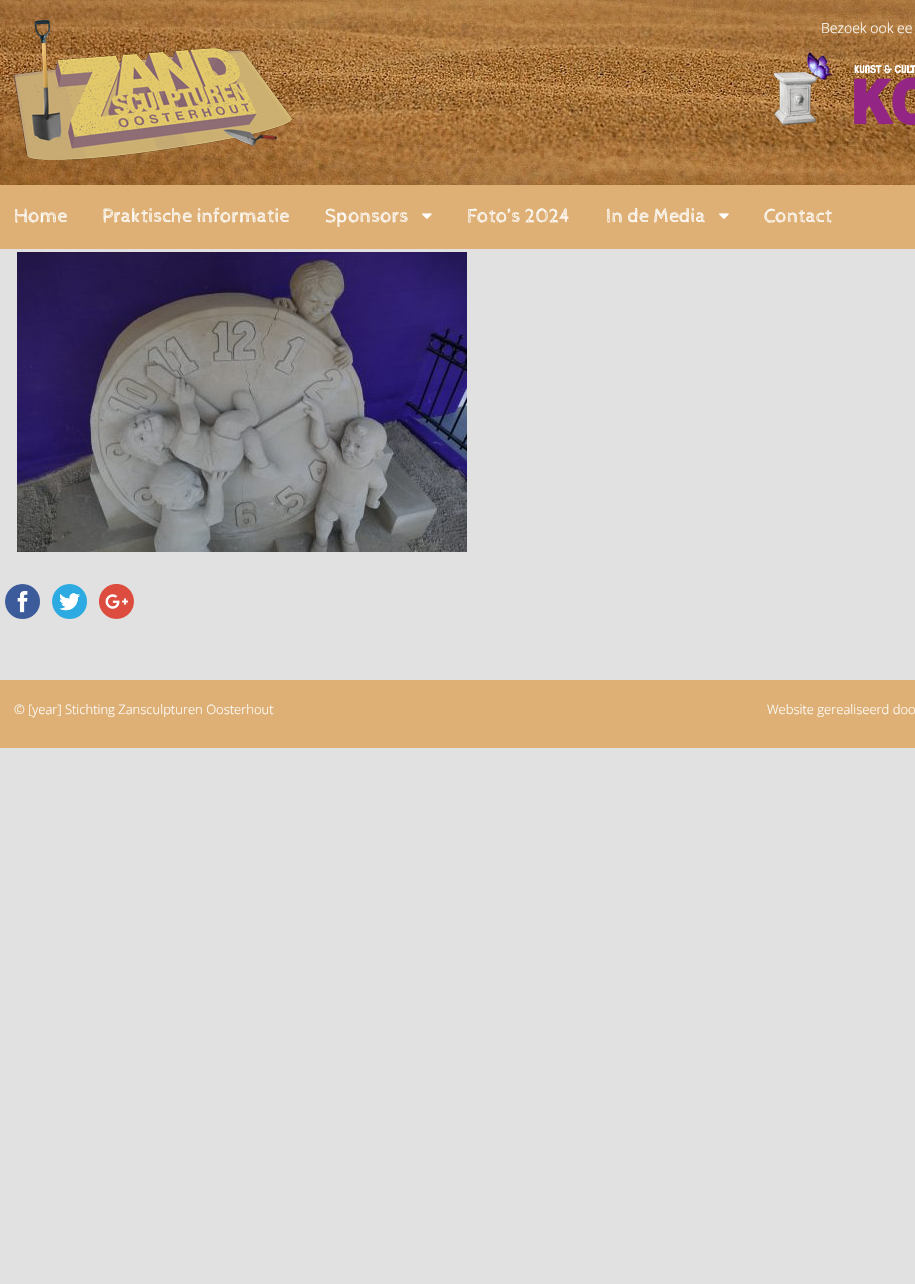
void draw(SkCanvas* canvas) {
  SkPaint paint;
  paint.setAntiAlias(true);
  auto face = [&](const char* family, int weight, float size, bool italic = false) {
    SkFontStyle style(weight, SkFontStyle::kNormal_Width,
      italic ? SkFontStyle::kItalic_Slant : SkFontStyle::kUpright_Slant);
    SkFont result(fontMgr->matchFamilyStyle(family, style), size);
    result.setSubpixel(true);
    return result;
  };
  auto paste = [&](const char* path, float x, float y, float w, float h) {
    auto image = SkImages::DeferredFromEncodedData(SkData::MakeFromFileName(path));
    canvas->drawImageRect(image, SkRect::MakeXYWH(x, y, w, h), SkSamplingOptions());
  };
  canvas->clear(0xffe1e1e1);
  paste("img/1.png", 0, 0, 915, 185);
  paste("img/2.png", 14, 20, 278, 140);
  paste("img/3.png", 774, 48, 60, 77);
  paste("img/4.png", 854, 65, 61, 60);
  paint.setColor(0xffdeb075);
  canvas->drawRect(SkRect::MakeXYWH(0, 185, 915, 64), paint);
  paste("img/5.png", 422, 213, 10, 6);
  paste("img/5.png", 719, 213, 10, 6);
  paste("img/6.png", 17, 252, 450, 300);
  paste("img/7.png", 5, 584, 35, 35);
  paste("img/8.png", 52, 584, 35, 35);
  paste("img/9.png", 99, 584, 35, 35);
  canvas->drawRect(SkRect::MakeXYWH(0, 680, 915, 68), paint);
  auto f0 = face("Open Sans", 300, 14);
  paint.setColor(0xffffffff);
  canvas->drawString("Bezoek ook ee", 821, 33, f0, paint);
  auto f1 = face("Cabin Sketch", 400, 20);
  {
    const struct { const char* s; float x, y; } items[] = {
      {"Home", 14, 222},
      {"Praktische informatie", 102, 222},
      {"Sponsors", 325, 222},
      {"Foto’s 2024", 467, 222},
      {"In de Media", 606, 222},
      {"Contact", 764, 222},
    };
    for (auto [s, x, y] : items) {
      canvas->drawString(s, x, y, f1, paint);
    }
  }
  auto f2 = face("Open Sans", 300, 13);
  canvas->drawString("© [year] Stichting Zansculpturen Oosterhout", 14, 714, f2, paint);
  canvas->drawString("Website gerealiseerd doo", 767, 714, f2, paint);
}
